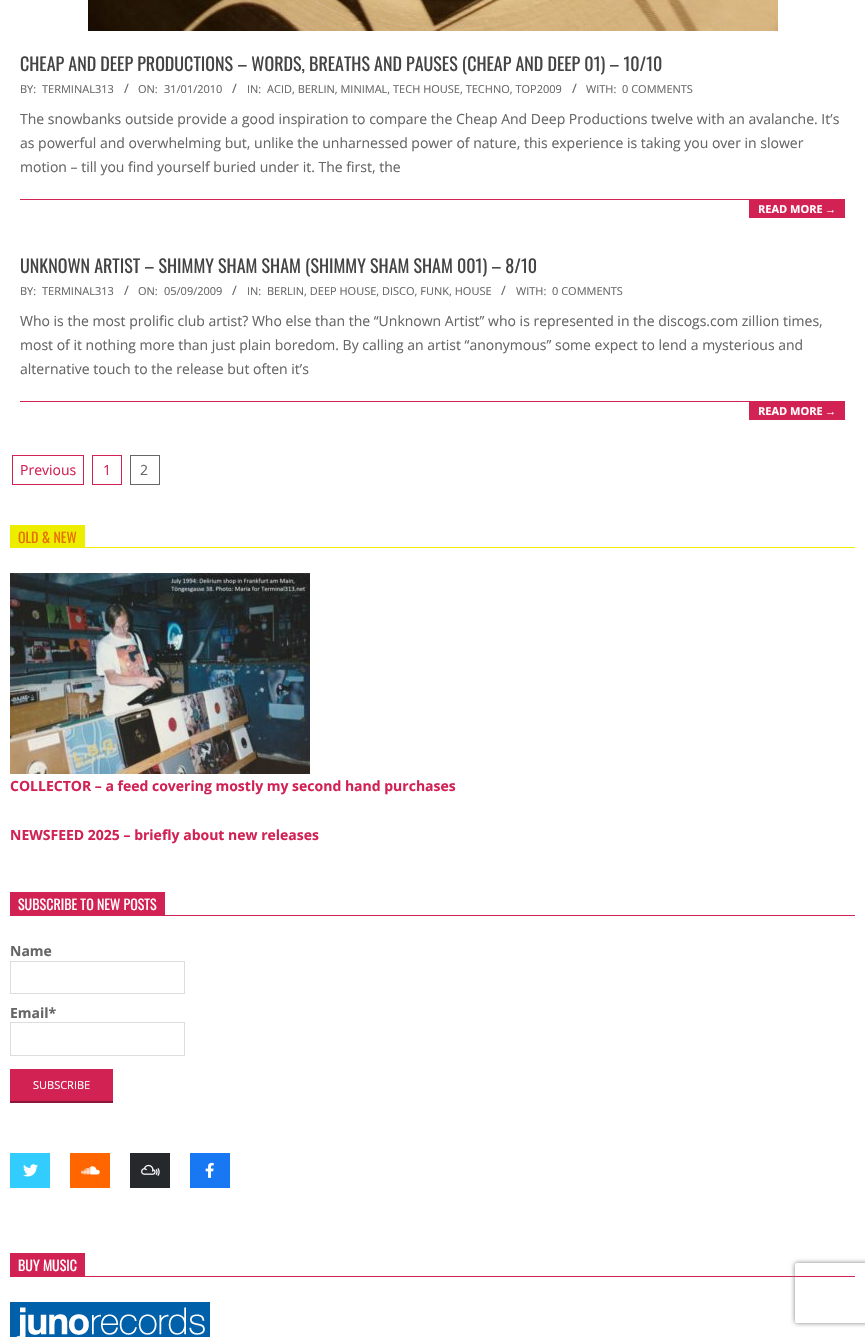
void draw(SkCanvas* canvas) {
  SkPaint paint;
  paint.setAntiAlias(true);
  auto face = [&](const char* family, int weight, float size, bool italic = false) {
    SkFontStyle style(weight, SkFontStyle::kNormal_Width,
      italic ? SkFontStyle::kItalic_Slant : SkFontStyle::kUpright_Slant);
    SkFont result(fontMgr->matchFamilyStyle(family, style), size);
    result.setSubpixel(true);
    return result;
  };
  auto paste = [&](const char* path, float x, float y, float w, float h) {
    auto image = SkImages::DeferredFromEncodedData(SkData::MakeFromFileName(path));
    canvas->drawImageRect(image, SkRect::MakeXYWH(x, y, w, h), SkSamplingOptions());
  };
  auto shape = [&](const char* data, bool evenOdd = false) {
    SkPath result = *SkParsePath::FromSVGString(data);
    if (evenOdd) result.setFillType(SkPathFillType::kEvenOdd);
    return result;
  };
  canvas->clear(0xffffffff);
  paste("img/1.png", 88, 0, 690, 31);
  {
    const struct { float x, y, w, h; SkColor color; } items[] = {
      {20, 199, 825, 1, 0xffd22254},
      {749, 200, 96, 18, 0xffd22254},
      {20, 401, 825, 1, 0xffd22254},
      {749, 402, 96, 18, 0xffd22254},
    };
    for (auto [x, y, w, h, color] : items) {
      paint.setColor(color);
      canvas->drawRect(SkRect::MakeXYWH(x, y, w, h), paint);
    }
  }
  paint.setStroke(true);
  paint.setStrokeWidth(1);
  canvas->drawRect(SkRect::MakeXYWH(12.5f, 455.5f, 71, 29), paint);
  canvas->drawRect(SkRect::MakeXYWH(92.5f, 455.5f, 29, 29), paint);
  paint.setColor(0xff666666);
  canvas->drawRect(SkRect::MakeXYWH(130.5f, 455.5f, 29, 29), paint);
  paint.setStroke(false);
  paint.setColor(0xffeded00);
  canvas->drawRect(SkRect::MakeXYWH(10, 525, 75, 22), paint);
  canvas->drawRect(SkRect::MakeXYWH(10, 547, 845, 1), paint);
  paste("img/2.png", 10, 573, 300, 201);
  paint.setColor(0xffd22254);
  canvas->drawRect(SkRect::MakeXYWH(10, 892, 155, 23), paint);
  canvas->drawRect(SkRect::MakeXYWH(10, 915, 845, 1), paint);
  paint.setStroke(true);
  paint.setColor(0xffdddddd);
  canvas->drawRect(SkRect::MakeXYWH(10.5f, 961.5f, 174, 32), paint);
  canvas->drawRect(SkRect::MakeXYWH(10.5f, 1022.5f, 174, 33), paint);
  paint.setStroke(false);
  {
    const struct { float x, y, w, h; SkColor color; } items[] = {
      {10, 1069, 103, 32, 0xffd22254},
      {10, 1101, 103, 2, 0xff8d1738},
      {10, 1153, 40, 35, 0xff32ccfe},
    };
    for (auto [x, y, w, h, color] : items) {
      paint.setColor(color);
      canvas->drawRect(SkRect::MakeXYWH(x, y, w, h), paint);
    }
  }
  paste("img/3.png", 23, 1164, 15, 13);
  paint.setColor(0xffff6600);
  canvas->drawRect(SkRect::MakeXYWH(70, 1153, 40, 35), paint);
  paste("img/4.png", 81, 1166, 19, 9);
  paint.setColor(0xff25292b);
  canvas->drawRect(SkRect::MakeXYWH(130, 1153, 40, 35), paint);
  paste("img/5.png", 141, 1164, 19, 12);
  paint.setColor(0xff1877f2);
  canvas->drawRect(SkRect::MakeXYWH(190, 1153, 40, 35), paint);
  paste("img/6.png", 205, 1162, 9, 16);
  paint.setColor(0xffd22254);
  canvas->drawRect(SkRect::MakeXYWH(10, 1253, 75, 23), paint);
  canvas->drawRect(SkRect::MakeXYWH(10, 1276, 845, 1), paint);
  paste("img/7.png", 10, 1302, 200, 35);
  canvas->save();
  canvas->clipPath(shape("M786 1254H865V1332H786ZM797 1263H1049C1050 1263 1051 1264 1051 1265V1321C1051 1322 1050 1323 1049 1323H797C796 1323 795 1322 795 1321V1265C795 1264 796 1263 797 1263Z", true), true);
  paint.setColor(0xff808080);
  paint.setMaskFilter(SkMaskFilter::MakeBlur(kNormal_SkBlurStyle, 2.5f));
  canvas->drawRoundRect(SkRect::MakeXYWH(795, 1263, 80, 60), 2, 2, paint);
  paint.setMaskFilter(nullptr);
  canvas->restore();
  auto f0 = face("Oswald", 400, 18);
  paint.setColor(0xff444444);
  canvas->drawString("CHEAP AND DEEP PRODUCTIONS – WORDS, BREATHS AND PAUSES (CHEAP AND DEEP 01) – 10/10", 20, 71, f0, paint);
  auto f1 = face("Open Sans", 400, 11);
  paint.setColor(0xff666666);
  canvas->drawString("BY:", 20, 93, f1, paint);
  canvas->drawString("TERMINAL313", 42, 93, f1, paint);
  auto f2 = face("Open Sans", 400, 13);
  canvas->drawString("/", 124, 93, f2, paint);
  canvas->drawString("ON:", 138, 93, f1, paint);
  canvas->drawString("31/01/2010", 164, 93, f1, paint);
  canvas->drawString("/", 232, 93, f2, paint);
  canvas->drawString("IN:", 247, 93, f1, paint);
  canvas->drawString("ACID, BERLIN, MINIMAL, TECH HOUSE, TECHNO, TOP2009", 267, 93, f1, paint);
  canvas->drawString("/", 572, 93, f2, paint);
  canvas->drawString("WITH:", 586, 93, f1, paint);
  canvas->drawString("0 COMMENTS", 622, 93, f1, paint);
  auto f3 = face("Open Sans", 400, 14);
  {
    const struct { const char* s; float x, y; } items[] = {
      {"The snowbanks outside provide a good inspiration to compare the Cheap And Deep Productions twelve with an avalanche. It’s", 20, 124},
      {"as powerful and overwhelming but, unlike the unharnessed power of nature, this experience is taking you over in slower", 20, 148},
      {"motion – till you find yourself buried under it. The first, the", 20, 172},
    };
    for (auto [s, x, y] : items) {
      canvas->drawString(s, x, y, f3, paint);
    }
  }
  auto f4 = face("Open Sans", 700, 11);
  paint.setColor(0xffffffff);
  canvas->drawString("READ MORE", 758, 213, f4, paint);
  auto f5 = face("Liberation Sans", 700, 11);
  canvas->drawString("→", 825, 213, f5, paint);
  paint.setColor(0xff444444);
  canvas->drawString("UNKNOWN ARTIST – SHIMMY SHAM SHAM (SHIMMY SHAM SHAM 001) – 8/10", 20, 273, f0, paint);
  paint.setColor(0xff666666);
  canvas->drawString("BY:", 20, 295, f1, paint);
  canvas->drawString("TERMINAL313", 42, 295, f1, paint);
  canvas->drawString("/", 124, 295, f2, paint);
  canvas->drawString("ON:", 138, 295, f1, paint);
  canvas->drawString("05/09/2009", 164, 295, f1, paint);
  canvas->drawString("/", 232, 295, f2, paint);
  canvas->drawString("IN:", 247, 295, f1, paint);
  canvas->drawString("BERLIN, DEEP HOUSE, DISCO, FUNK, HOUSE", 267, 295, f1, paint);
  canvas->drawString("/", 501, 295, f2, paint);
  canvas->drawString("WITH:", 516, 295, f1, paint);
  canvas->drawString("0 COMMENTS", 552, 295, f1, paint);
  {
    const struct { const char* s; float x, y; } items[] = {
      {"Who is the most prolific club artist? Who else than the “Unknown Artist” who is represented in the discogs.com zillion times,", 20, 326},
      {"most of it nothing more than just plain boredom. By calling an artist “anonymous” some expect to lend a mysterious and", 20, 350},
      {"alternative touch to the release but often it’s", 20, 374},
    };
    for (auto [s, x, y] : items) {
      canvas->drawString(s, x, y, f3, paint);
    }
  }
  paint.setColor(0xffffffff);
  canvas->drawString("READ MORE", 758, 415, f4, paint);
  canvas->drawString("→", 825, 415, f5, paint);
  paint.setColor(0xffd22254);
  canvas->drawString("Previous", 20, 475, f3, paint);
  canvas->drawString("1", 103, 475, f3, paint);
  paint.setColor(0xff666666);
  canvas->drawString("2", 140, 475, f3, paint);
  auto f6 = face("Oswald", 400, 14);
  paint.setColor(0xffe87000);
  canvas->drawString("OLD & NEW", 18, 543, f6, paint);
  auto f7 = face("Open Sans", 700, 14);
  paint.setColor(0xffd22254);
  canvas->drawString("COLLECTOR – a feed covering mostly my second hand purchases", 10, 791, f7, paint);
  canvas->drawString("NEWSFEED 2025 – briefly about new releases", 10, 840, f7, paint);
  paint.setColor(0xffffffff);
  canvas->drawString("SUBSCRIBE TO NEW POSTS", 18, 910, f6, paint);
  paint.setColor(0xff666666);
  canvas->drawString("Name", 10, 956, f7, paint);
  canvas->drawString("Email*", 10, 1018, f7, paint);
  paint.setColor(0xffffffff);
  canvas->drawString("SUBSCRIBE", 33, 1089, f1, paint);
  canvas->drawString("BUY MUSIC", 18, 1271, f6, paint);
}
